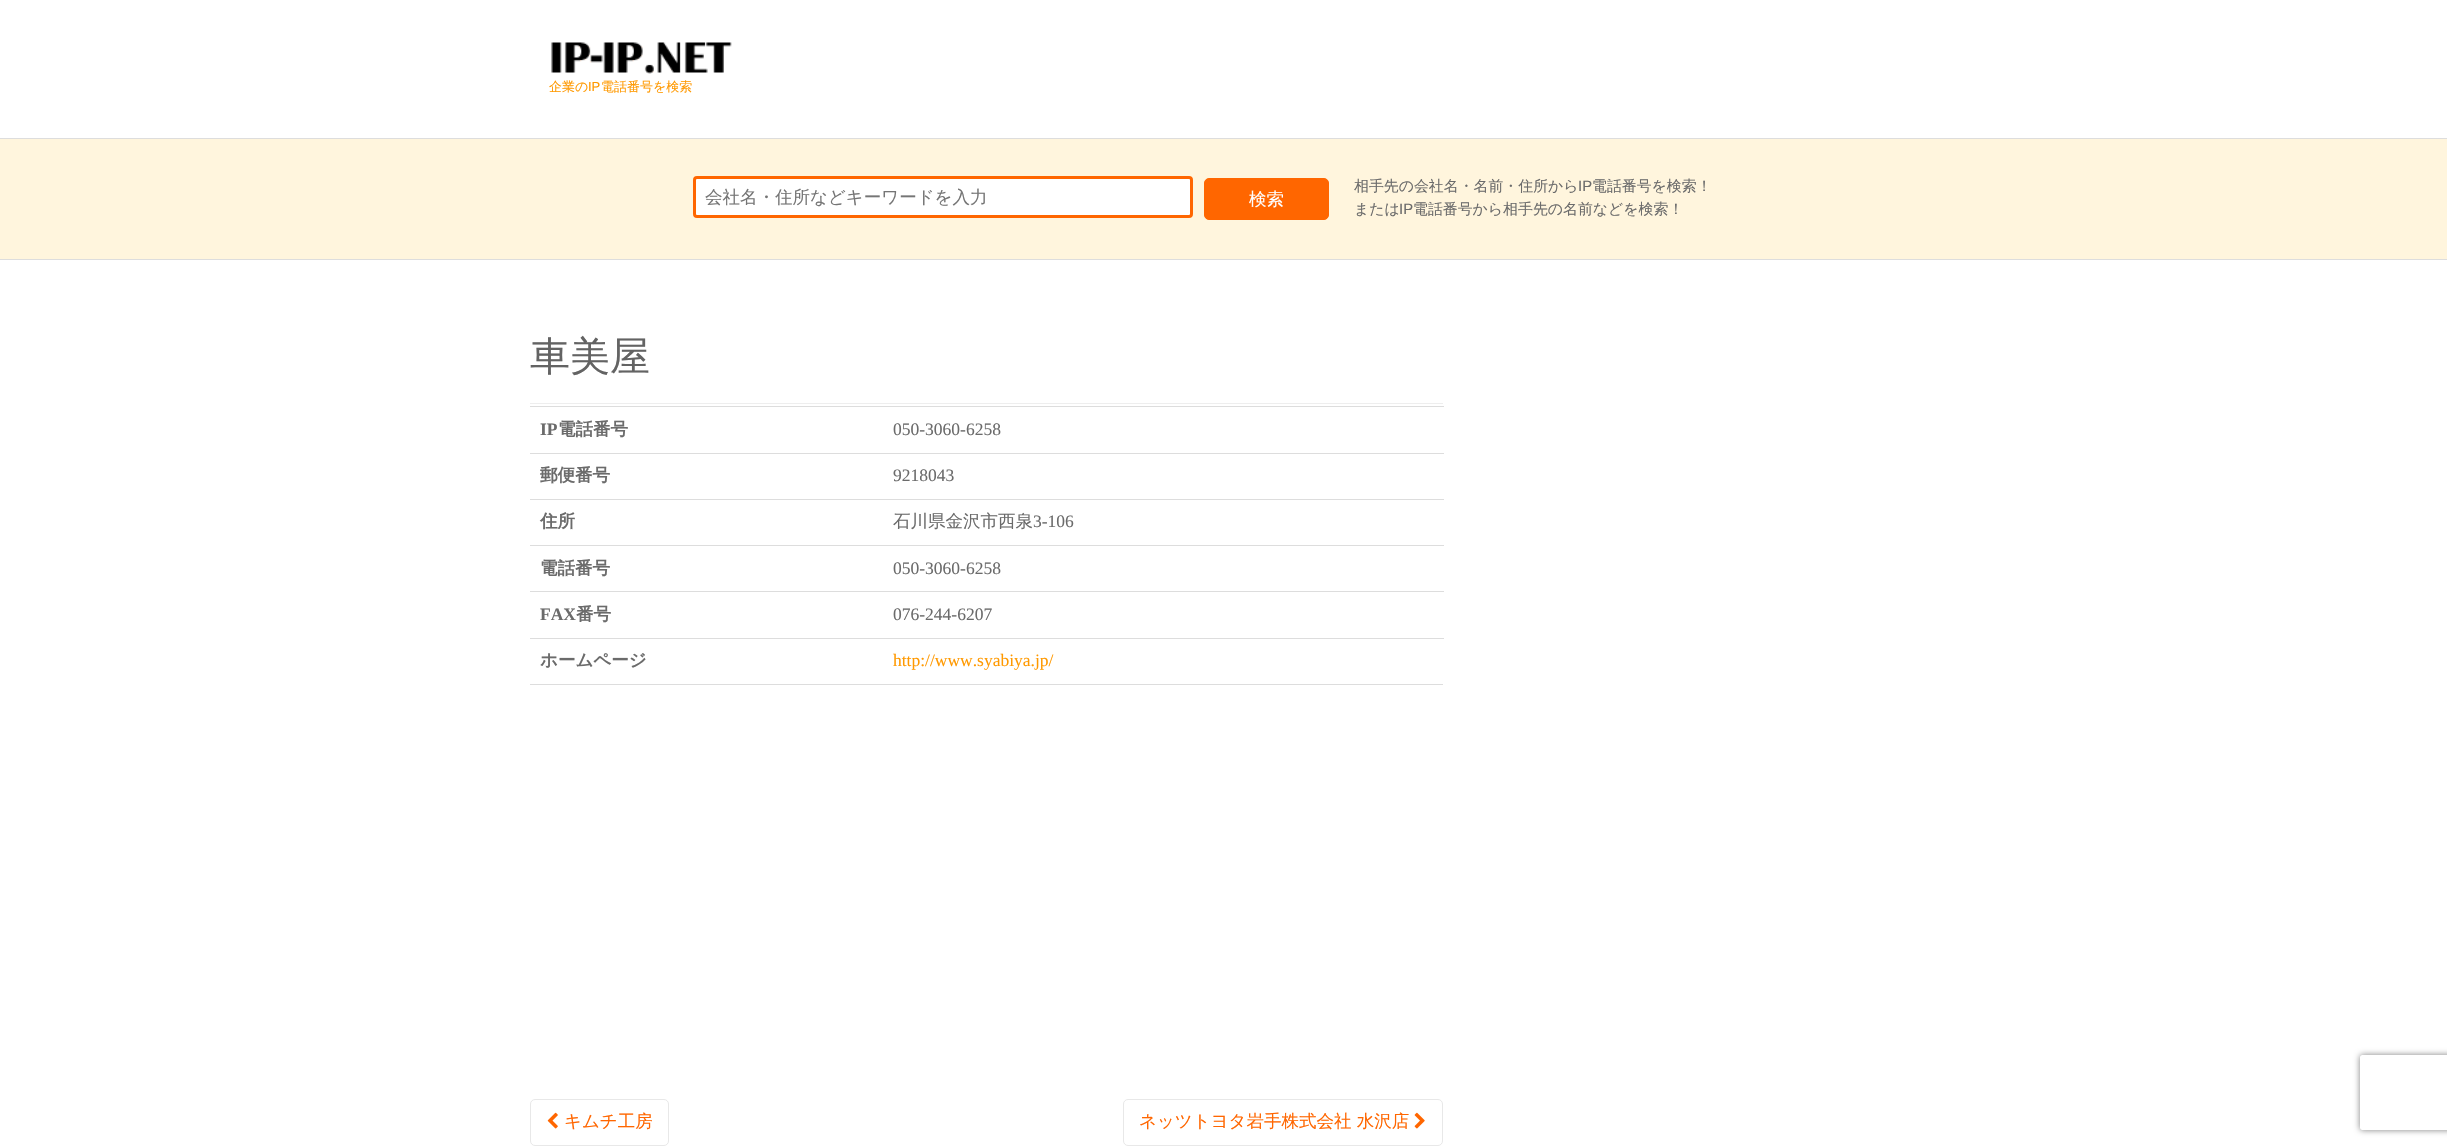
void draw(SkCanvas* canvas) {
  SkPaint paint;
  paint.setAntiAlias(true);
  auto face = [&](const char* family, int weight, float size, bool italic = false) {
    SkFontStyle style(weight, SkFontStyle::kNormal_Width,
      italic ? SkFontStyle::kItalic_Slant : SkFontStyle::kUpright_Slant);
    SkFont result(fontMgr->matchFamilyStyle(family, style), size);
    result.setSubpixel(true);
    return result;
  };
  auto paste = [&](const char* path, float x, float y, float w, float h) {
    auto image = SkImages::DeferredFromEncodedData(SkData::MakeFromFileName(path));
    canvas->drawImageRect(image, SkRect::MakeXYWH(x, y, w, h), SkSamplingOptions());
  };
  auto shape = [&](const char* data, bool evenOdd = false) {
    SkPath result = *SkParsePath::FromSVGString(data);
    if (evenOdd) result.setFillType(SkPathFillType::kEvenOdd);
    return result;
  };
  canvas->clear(0xffffffff);
  paste("img/1.png", 551, 42, 181, 32);
  {
    const struct { float x, y, w, h; SkColor color; } items[] = {
      {0, 139, 2447, 120, 0xfffff5dd},
      {0, 138, 2447, 1, 0xffdddddd},
      {0, 259, 2447, 1, 0xffdddddd},
    };
    for (auto [x, y, w, h, color] : items) {
      paint.setColor(color);
      canvas->drawRect(SkRect::MakeXYWH(x, y, w, h), paint);
    }
  }
  paint.setColor(0xffffffff);
  canvas->drawRoundRect(SkRect::MakeXYWH(694.5f, 177.5f, 497, 39), 2.5f, 2.5f, paint);
  paint.setStroke(true);
  paint.setStrokeWidth(3);
  paint.setColor(0xffff6600);
  canvas->drawRoundRect(SkRect::MakeXYWH(694.5f, 177.5f, 497, 39), 2.5f, 2.5f, paint);
  paint.setStroke(false);
  canvas->drawRoundRect(SkRect::MakeXYWH(1204.5f, 178.5f, 124, 41), 4.5f, 4.5f, paint);
  paint.setStroke(true);
  paint.setStrokeWidth(1);
  canvas->drawRoundRect(SkRect::MakeXYWH(1204.5f, 178.5f, 124, 41), 4.5f, 4.5f, paint);
  paint.setStroke(false);
  {
    const struct { float x, y, w, h; SkColor color; } items[] = {
      {530, 403, 913, 1, 0xffeeeeee},
      {530, 684, 913, 1, 0xffdddddd},
      {530, 406, 914, 1, 0xffdddddd},
      {530, 453, 914, 1, 0xffdddddd},
      {530, 499, 914, 1, 0xffdddddd},
      {530, 545, 914, 1, 0xffdddddd},
      {530, 591, 914, 1, 0xffdddddd},
      {530, 638, 914, 1, 0xffdddddd},
    };
    for (auto [x, y, w, h, color] : items) {
      paint.setColor(color);
      canvas->drawRect(SkRect::MakeXYWH(x, y, w, h), paint);
    }
  }
  paint.setStroke(true);
  paint.setColor(0xffe8e8e8);
  canvas->drawRoundRect(SkRect::MakeXYWH(530.5f, 1099.5f, 138, 46), 4.5f, 4.5f, paint);
  paste("img/2.png", 547, 1112, 11, 17);
  canvas->drawRoundRect(SkRect::MakeXYWH(1123.5f, 1099.5f, 319, 46), 4.5f, 4.5f, paint);
  paste("img/3.png", 1414, 1112, 11, 17);
  canvas->save();
  canvas->clipPath(shape("M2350 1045H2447V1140H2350ZM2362.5 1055H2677.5C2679 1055 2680 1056 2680 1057.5V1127.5C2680 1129 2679 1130 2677.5 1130H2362.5C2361 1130 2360 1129 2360 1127.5V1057.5C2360 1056 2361 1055 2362.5 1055Z", true), true);
  paint.setStroke(false);
  paint.setColor(0xff808080);
  paint.setMaskFilter(SkMaskFilter::MakeBlur(kNormal_SkBlurStyle, 3));
  canvas->drawRoundRect(SkRect::MakeXYWH(2360, 1055, 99, 75), 2.5f, 2.5f, paint);
  paint.setMaskFilter(nullptr);
  canvas->restore();
  auto f0 = face("WenQuanYi Zen Hei", 500, 13);
  paint.setColor(0xffff9900);
  canvas->drawString("企業の", 549, 91, f0, paint);
  auto f1 = face("Liberation Sans", 400, 13);
  canvas->drawString("IP", 588, 91, f1, paint);
  canvas->drawString("電話番号を検索", 601, 91, f0, paint);
  auto f2 = face("WenQuanYi Zen Hei", 500, 17.5f);
  paint.setColor(0xff757575);
  canvas->drawString("会社名・住所などキーワードを入力", 705, 203, f2, paint);
  paint.setColor(0xffffffff);
  canvas->drawString("検索", 1249, 205, f2, paint);
  auto f3 = face("WenQuanYi Zen Hei", 500, 14.9f);
  paint.setColor(0xff6b6b6b);
  canvas->drawString("相手先の会社名・名前・住所から", 1354, 191, f3, paint);
  auto f4 = face("Liberation Sans", 400, 14.9f);
  canvas->drawString("IP", 1578, 191, f4, paint);
  canvas->drawString("電話番号を検索！", 1592, 191, f3, paint);
  canvas->drawString("または", 1354, 214, f3, paint);
  canvas->drawString("IP", 1399, 214, f4, paint);
  canvas->drawString("電話番号から相手先の名前などを検索！", 1413, 214, f3, paint);
  auto f5 = face("WenQuanYi Zen Hei", 500, 40);
  paint.setColor(0xff636363);
  canvas->drawString("車美屋", 530, 370, f5, paint);
  auto f6 = face("Liberation Serif", 700, 17.5f);
  paint.setColor(0xff6b6b6b);
  canvas->drawString("IP", 540, 435, f6, paint);
  auto f7 = face("WenQuanYi Zen Hei", 700, 17.5f);
  canvas->drawString("電話番号", 558, 435, f7, paint);
  auto f8 = face("Liberation Serif", 400, 17.5f);
  canvas->drawString("050-3060-6258", 893, 435, f8, paint);
  canvas->drawString("郵便番号", 540, 481, f7, paint);
  canvas->drawString("9218043", 893, 481, f8, paint);
  canvas->drawString("住所", 540, 527, f7, paint);
  canvas->drawString("石川県金沢市西泉", 893, 527, f2, paint);
  canvas->drawString("3-106", 1033, 527, f8, paint);
  canvas->drawString("電話番号", 540, 574, f7, paint);
  canvas->drawString("050-3060-6258", 893, 574, f8, paint);
  canvas->drawString("FAX", 540, 620, f6, paint);
  canvas->drawString("番号", 576, 620, f7, paint);
  canvas->drawString("076-244-6207", 893, 620, f8, paint);
  canvas->drawString("ホームページ", 540, 666, f7, paint);
  paint.setColor(0xffff9900);
  canvas->drawString("http://www.syabiya.jp/", 893, 666, f8, paint);
  paint.setColor(0xffff6600);
  canvas->drawString("キムチ工房", 564, 1127, f2, paint);
  canvas->drawString("ネッツトヨタ岩手株式会社 水沢店", 1139, 1127, f2, paint);
}
